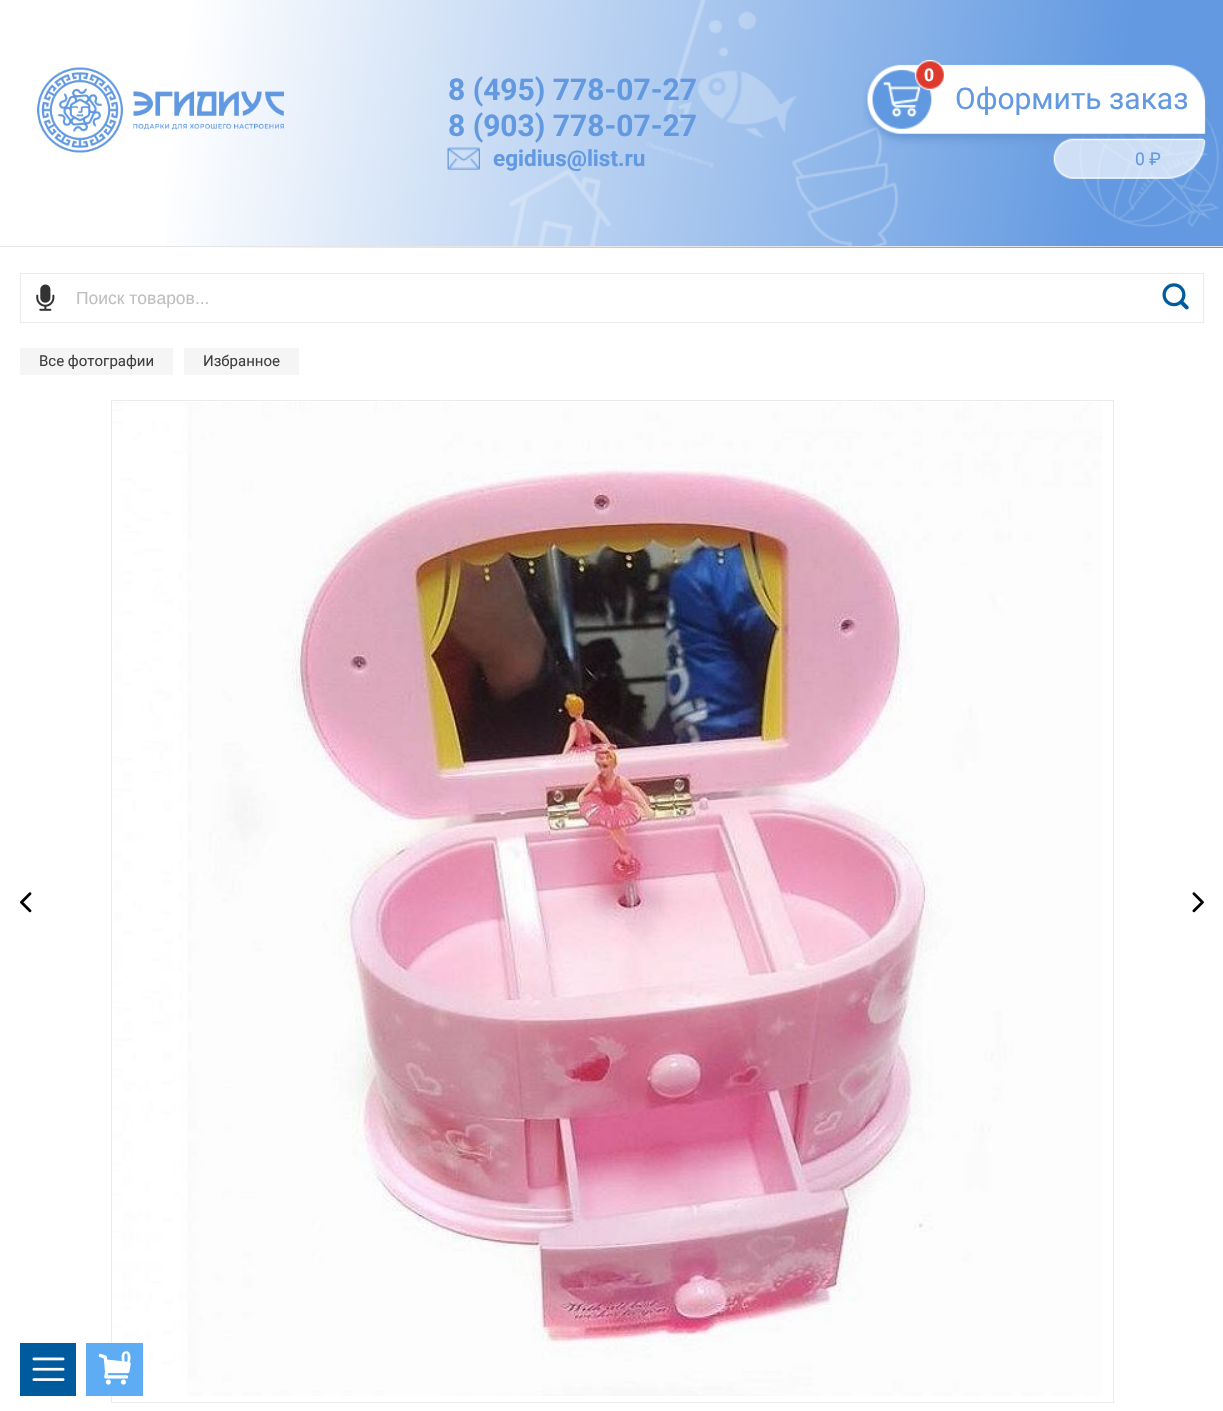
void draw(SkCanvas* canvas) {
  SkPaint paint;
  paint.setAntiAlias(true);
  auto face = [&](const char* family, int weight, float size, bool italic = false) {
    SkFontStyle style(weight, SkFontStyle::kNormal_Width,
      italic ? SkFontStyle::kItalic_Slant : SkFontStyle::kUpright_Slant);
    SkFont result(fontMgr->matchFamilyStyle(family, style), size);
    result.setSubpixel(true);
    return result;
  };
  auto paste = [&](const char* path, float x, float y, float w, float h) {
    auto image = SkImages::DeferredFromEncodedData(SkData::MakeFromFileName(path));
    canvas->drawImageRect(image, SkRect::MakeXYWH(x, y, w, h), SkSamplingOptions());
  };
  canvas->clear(0xffffffff);
  {
    const SkColor colors[] = {0xffffffff, 0xff6299e1};
    const float stops[] = {0.15f, 0.9f};
    const SkPoint ends[] = {{-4.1f, 26}, {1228, 221}};
    paint.setShader(SkGradientShader::MakeLinear(ends, colors, stops, 2, SkTileMode::kClamp));
    paint.setAlpha(255);
  }
  canvas->drawRect(SkRect::MakeXYWH(166, 0, 1057, 246), paint);
  {
    const SkColor colors[] = {0xffffffff, 0xff6299e1};
    const float stops[] = {0.15f, 0.9f};
    const SkPoint ends[] = {{-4.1f, 272}, {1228, 467}};
    paint.setShader(SkGradientShader::MakeLinear(ends, colors, stops, 2, SkTileMode::kClamp));
    paint.setAlpha(255);
  }
  canvas->drawRect(SkRect::MakeXYWH(204, 247, 1019, 1), paint);
  paint.setShader(nullptr);
  paint.setColor(0xffe6e6e6);
  canvas->drawRect(SkRect::MakeXYWH(0, 246, 1223, 1), paint);
  paste("img/1.png", 509, 0, 710, 246);
  paste("img/2.png", 37, 67, 247, 86);
  paste("img/3.png", 447, 147, 33, 23);
  paste("img/4.png", 863, 60, 348, 119);
  paint.setStroke(true);
  paint.setStrokeWidth(1);
  paint.setColor(0xffebebeb);
  canvas->drawRect(SkRect::MakeXYWH(20.5f, 273.5f, 1183, 49), paint);
  paste("img/5.png", 36, 284, 19, 27);
  paste("img/6.png", 1162, 283, 27, 27);
  paint.setStroke(false);
  paint.setColor(0xfff5f5f5);
  canvas->drawRect(SkRect::MakeXYWH(20, 348, 153, 27), paint);
  canvas->drawRect(SkRect::MakeXYWH(184, 348, 115, 27), paint);
  paste("img/7.png", 20, 892, 12, 21);
  paint.setStroke(true);
  paint.setColor(0xffebebeb);
  canvas->drawRect(SkRect::MakeXYWH(111.5f, 400.5f, 1002, 1002), paint);
  paste("img/8.png", 113, 402, 989, 994);
  paste("img/9.png", 1192, 892, 12, 21);
  paint.setStroke(false);
  paint.setColor(0xff005a9e);
  canvas->drawRect(SkRect::MakeXYWH(20, 1343, 56, 53), paint);
  paste("img/10.png", 32, 1357, 33, 24);
  paint.setColor(0xff5eadf4);
  canvas->drawRect(SkRect::MakeXYWH(86, 1343, 57, 53), paint);
  paste("img/11.png", 98, 1353, 33, 32);
  auto f0 = face("Roboto", 700, 30);
  paint.setColor(0xff6299e1);
  canvas->drawString("8 (495) 778-07-27", 448, 100, f0, paint);
  canvas->drawString("8 (903) 778-07-27", 448, 136, f0, paint);
  auto f1 = face("Roboto", 700, 22.5f);
  canvas->drawString("egidius@list.ru", 493, 166, f1, paint);
  auto f2 = face("Roboto", 700, 17.5f);
  paint.setColor(0xffffffff);
  canvas->drawString("0", 924, 81, f2, paint);
  auto f3 = face("Roboto", 400, 30);
  paint.setColor(0xff6299e1);
  canvas->drawString("Оформить заказ", 955, 109, f3, paint);
  auto f4 = face("Roboto", 400, 17.5f);
  canvas->drawString("0 ₽", 1135, 165, f4, paint);
  auto f5 = face("Liberation Sans", 400, 17.5f);
  paint.setColor(0xffbfbfbf);
  canvas->drawString("Поиск товаров...", 76, 304, f5, paint);
  auto f6 = face("Roboto", 400, 15);
  paint.setColor(0xff404040);
  canvas->drawString("Все фотографии", 39, 366, f6, paint);
  canvas->drawString("Избранное", 203, 366, f6, paint);
  paint.setColor(0xffffffff);
  canvas->drawString("0", 121, 1364, f2, paint);
}
